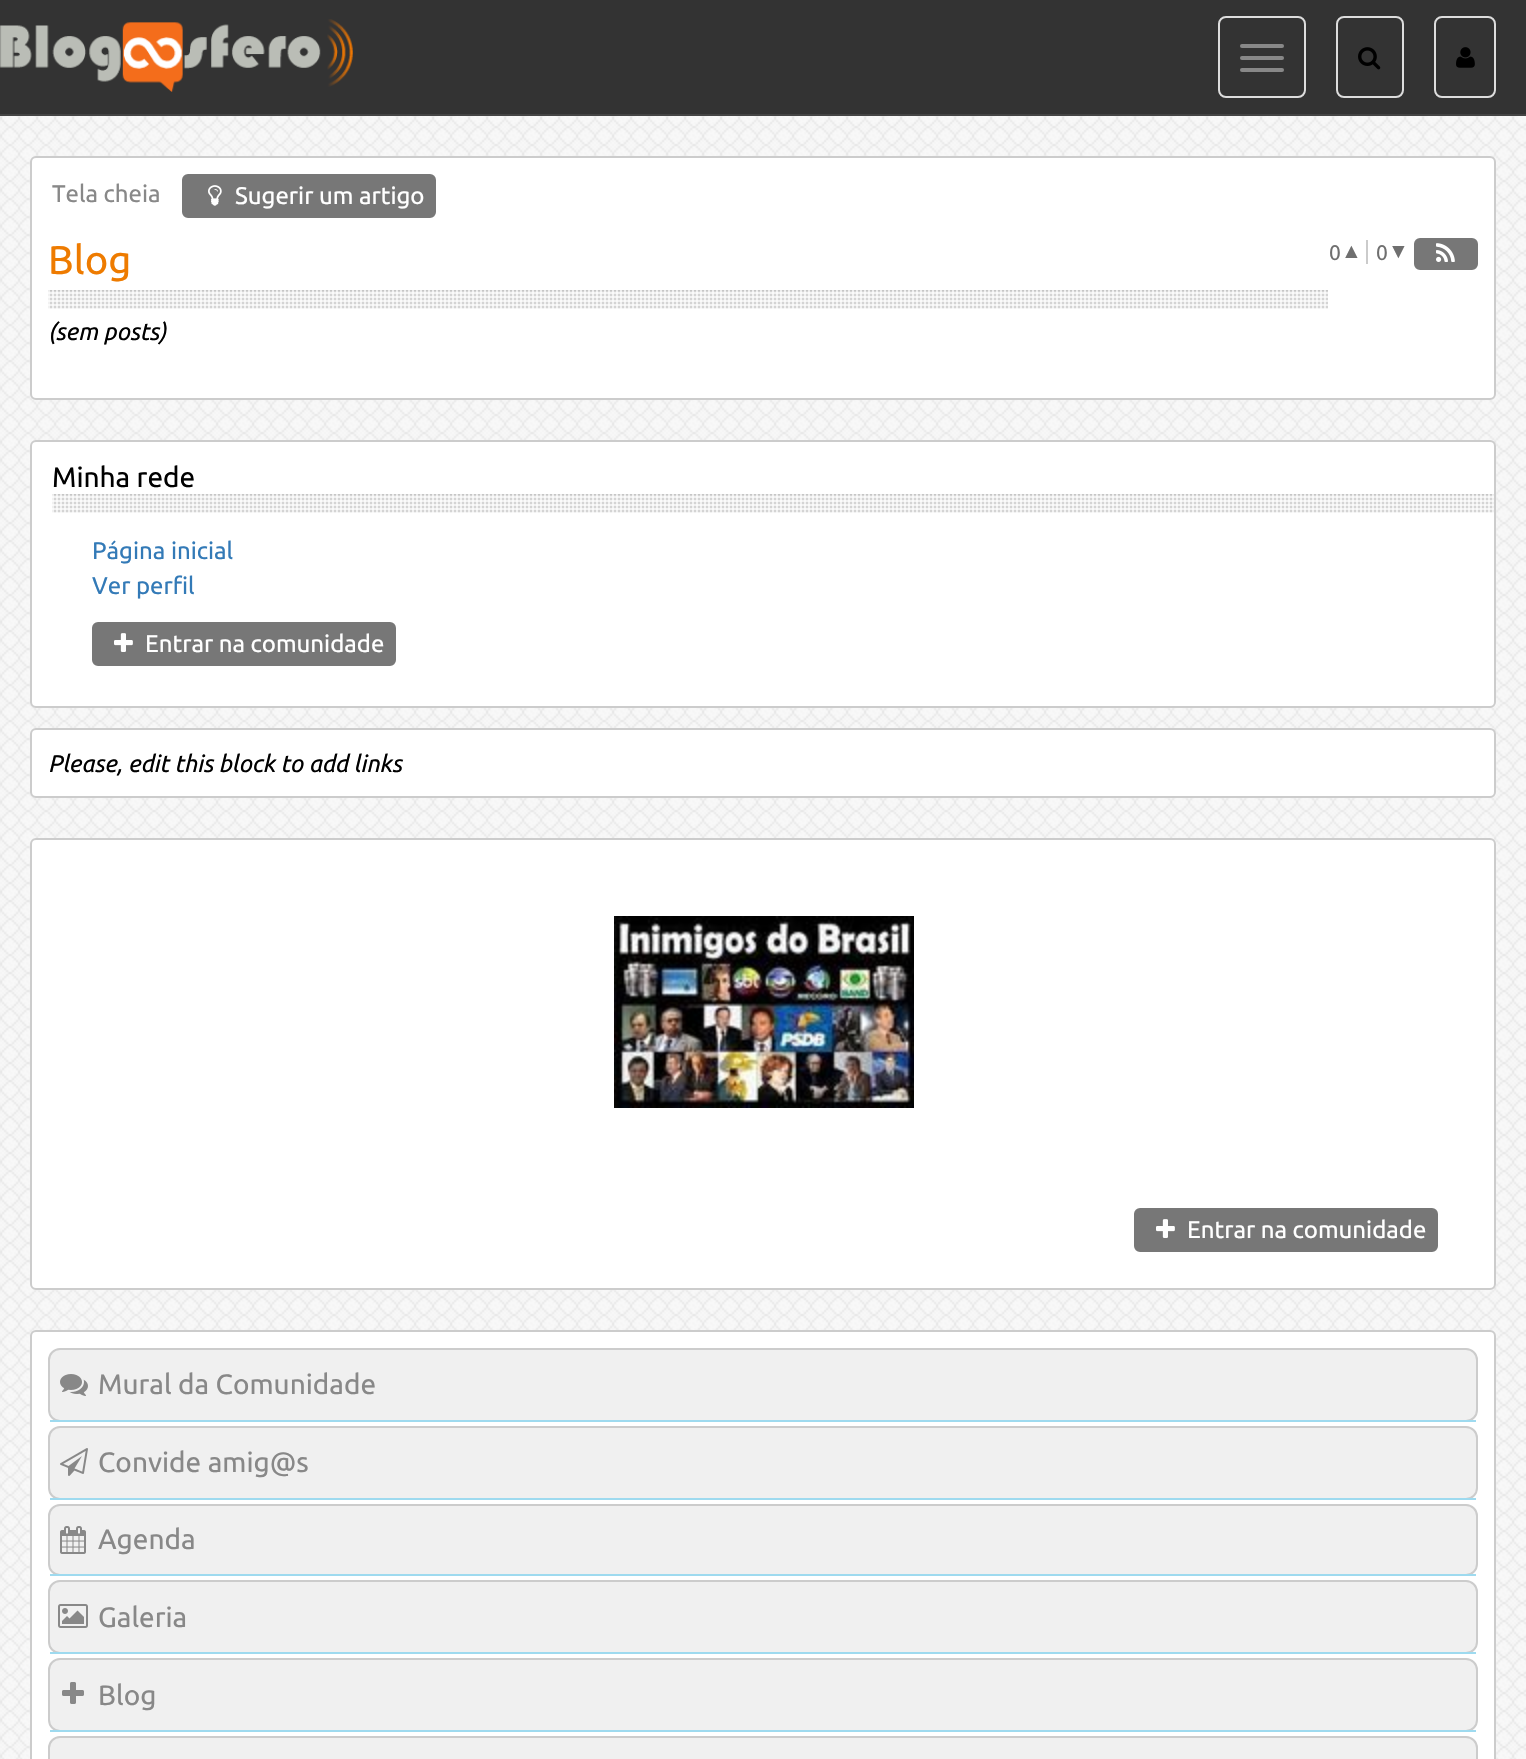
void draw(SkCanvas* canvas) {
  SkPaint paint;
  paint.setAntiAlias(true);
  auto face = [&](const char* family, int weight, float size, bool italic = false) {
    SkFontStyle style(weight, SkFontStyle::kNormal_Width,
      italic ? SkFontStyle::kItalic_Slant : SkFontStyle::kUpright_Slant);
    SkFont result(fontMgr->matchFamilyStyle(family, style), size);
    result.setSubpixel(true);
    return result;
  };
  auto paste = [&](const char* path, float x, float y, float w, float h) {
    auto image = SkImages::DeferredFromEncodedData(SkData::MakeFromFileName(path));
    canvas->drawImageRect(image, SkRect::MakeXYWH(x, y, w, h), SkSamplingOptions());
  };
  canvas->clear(0xfff8f8f8);
  paste("img/1.png", 0, 116, 1526, 1643);
  paint.setColor(0xff333333);
  canvas->drawRect(SkRect::MakeXYWH(0, 0, 1526, 114), paint);
  paint.setColor(0xff444444);
  canvas->drawRect(SkRect::MakeXYWH(0, 114, 1526, 2), paint);
  paste("img/2.png", 0, 19, 353, 73);
  paint.setStroke(true);
  paint.setStrokeWidth(2);
  paint.setColor(0xffdddddd);
  canvas->drawRoundRect(SkRect::MakeXYWH(1219, 17, 86, 80), 7, 7, paint);
  paint.setStroke(false);
  paint.setColor(0xff888888);
  canvas->drawRoundRect(SkRect::MakeXYWH(1240, 44, 44, 4), 2, 2, paint);
  canvas->drawRoundRect(SkRect::MakeXYWH(1240, 56, 44, 4), 2, 2, paint);
  canvas->drawRoundRect(SkRect::MakeXYWH(1240, 68, 44, 4), 2, 2, paint);
  paint.setStroke(true);
  paint.setColor(0xffdddddd);
  canvas->drawRoundRect(SkRect::MakeXYWH(1337, 17, 66, 80), 7, 7, paint);
  paste("img/3.png", 1358, 47, 23, 23);
  canvas->drawRoundRect(SkRect::MakeXYWH(1435, 17, 60, 80), 7, 7, paint);
  paste("img/4.png", 1456, 47, 19, 21);
  paint.setStroke(false);
  paint.setColor(0xffffffff);
  canvas->drawRoundRect(SkRect::MakeXYWH(30, 156, 1466, 244), 6, 6, paint);
  paint.setStroke(true);
  paint.setColor(0x33000000);
  canvas->drawRoundRect(SkRect::MakeXYWH(31, 157, 1464, 242), 5, 5, paint);
  paint.setStroke(false);
  paint.setColor(0xff777777);
  canvas->drawRoundRect(SkRect::MakeXYWH(183, 175, 252, 42), 5, 5, paint);
  paint.setStroke(true);
  canvas->drawRoundRect(SkRect::MakeXYWH(183, 175, 252, 42), 5, 5, paint);
  paste("img/5.png", 208, 185, 14, 21);
  paste("img/6.png", 48, 290, 1280, 19);
  paint.setStroke(false);
  paint.setColor(0xffcbcbcb);
  canvas->drawRect(SkRect::MakeXYWH(1366, 240, 2, 24), paint);
  paint.setColor(0xff777777);
  canvas->drawRoundRect(SkRect::MakeXYWH(1415, 239, 62, 30), 5, 5, paint);
  paint.setStroke(true);
  canvas->drawRoundRect(SkRect::MakeXYWH(1415, 239, 62, 30), 5, 5, paint);
  paste("img/7.png", 1436, 243, 19, 19);
  paint.setStroke(false);
  paint.setColor(0xffffffff);
  canvas->drawRoundRect(SkRect::MakeXYWH(30, 440, 1466, 268), 6, 6, paint);
  paint.setStroke(true);
  paint.setColor(0x33000000);
  canvas->drawRoundRect(SkRect::MakeXYWH(31, 441, 1464, 266), 5, 5, paint);
  paste("img/8.png", 52, 494, 1442, 19);
  paint.setStroke(false);
  paint.setColor(0xff777777);
  canvas->drawRoundRect(SkRect::MakeXYWH(93, 623, 302, 42), 5, 5, paint);
  paint.setStroke(true);
  canvas->drawRoundRect(SkRect::MakeXYWH(93, 623, 302, 42), 5, 5, paint);
  paste("img/9.png", 114, 633, 19, 19);
  paint.setStroke(false);
  paint.setColor(0xffffffff);
  canvas->drawRoundRect(SkRect::MakeXYWH(30, 728, 1466, 70), 6, 6, paint);
  paint.setStroke(true);
  paint.setColor(0x33000000);
  canvas->drawRoundRect(SkRect::MakeXYWH(31, 729, 1464, 68), 5, 5, paint);
  paint.setStroke(false);
  paint.setColor(0xffffffff);
  canvas->drawRoundRect(SkRect::MakeXYWH(30, 838, 1466, 452), 6, 6, paint);
  paint.setStroke(true);
  paint.setColor(0x33000000);
  canvas->drawRoundRect(SkRect::MakeXYWH(31, 839, 1464, 450), 5, 5, paint);
  paste("img/10.png", 614, 916, 300, 192);
  paint.setStroke(false);
  paint.setColor(0xff777777);
  canvas->drawRoundRect(SkRect::MakeXYWH(1135, 1209, 302, 42), 5, 5, paint);
  paint.setStroke(true);
  canvas->drawRoundRect(SkRect::MakeXYWH(1135, 1209, 302, 42), 5, 5, paint);
  paste("img/9.png", 1156, 1219, 19, 19);
  paint.setStroke(false);
  paint.setColor(0xffffffff);
  canvas->drawRoundRect(SkRect::MakeXYWH(30, 1330, 1466, 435), 6, 6, paint);
  paint.setStroke(true);
  paint.setColor(0x33000000);
  canvas->drawRoundRect(SkRect::MakeXYWH(31, 1331, 1464, 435), 5, 5, paint);
  paint.setStroke(false);
  paint.setColor(0xfff0f0f0);
  canvas->drawRoundRect(SkRect::MakeXYWH(49, 1349, 1428, 72), 11, 11, paint);
  paint.setStroke(true);
  paint.setColor(0xffcccccc);
  canvas->drawRoundRect(SkRect::MakeXYWH(49, 1349, 1428, 72), 11, 11, paint);
  paint.setStroke(false);
  paint.setColor(0xff9edaef);
  canvas->drawRect(SkRect::MakeXYWH(50, 1420, 1426, 2), paint);
  paste("img/11.png", 60, 1374, 28, 22);
  paint.setColor(0xfff0f0f0);
  canvas->drawRoundRect(SkRect::MakeXYWH(49, 1427, 1428, 72), 11, 11, paint);
  paint.setStroke(true);
  paint.setColor(0xffcccccc);
  canvas->drawRoundRect(SkRect::MakeXYWH(49, 1427, 1428, 72), 11, 11, paint);
  paint.setStroke(false);
  paint.setColor(0xff9edaef);
  canvas->drawRect(SkRect::MakeXYWH(50, 1498, 1426, 2), paint);
  paste("img/12.png", 60, 1448, 28, 28);
  paint.setColor(0xfff0f0f0);
  canvas->drawRoundRect(SkRect::MakeXYWH(49, 1505, 1428, 70), 11, 11, paint);
  paint.setStroke(true);
  paint.setColor(0xffcccccc);
  canvas->drawRoundRect(SkRect::MakeXYWH(49, 1505, 1428, 70), 11, 11, paint);
  paint.setStroke(false);
  paint.setColor(0xff9edaef);
  canvas->drawRect(SkRect::MakeXYWH(50, 1574, 1426, 2), paint);
  paste("img/13.png", 60, 1526, 26, 28);
  paint.setColor(0xfff0f0f0);
  canvas->drawRoundRect(SkRect::MakeXYWH(49, 1581, 1428, 72), 11, 11, paint);
  paint.setStroke(true);
  paint.setColor(0xffcccccc);
  canvas->drawRoundRect(SkRect::MakeXYWH(49, 1581, 1428, 72), 11, 11, paint);
  paint.setStroke(false);
  paint.setColor(0xff9edaef);
  canvas->drawRect(SkRect::MakeXYWH(50, 1652, 1426, 2), paint);
  paste("img/14.png", 58, 1604, 30, 24);
  paint.setColor(0xfff0f0f0);
  canvas->drawRoundRect(SkRect::MakeXYWH(49, 1659, 1428, 72), 11, 11, paint);
  paint.setStroke(true);
  paint.setColor(0xffcccccc);
  canvas->drawRoundRect(SkRect::MakeXYWH(49, 1659, 1428, 72), 11, 11, paint);
  paint.setStroke(false);
  paint.setColor(0xff9edaef);
  canvas->drawRect(SkRect::MakeXYWH(50, 1730, 1426, 2), paint);
  paste("img/15.png", 62, 1682, 22, 22);
  paint.setColor(0xfff0f0f0);
  canvas->drawRoundRect(SkRect::MakeXYWH(49, 1737, 1428, 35), 11, 11, paint);
  paint.setStroke(true);
  paint.setColor(0xffcccccc);
  canvas->drawRoundRect(SkRect::MakeXYWH(49, 1737, 1428, 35), 11, 11, paint);
  auto f0 = face("Ubuntu", 400, 24);
  paint.setStroke(false);
  paint.setColor(0xff888888);
  canvas->drawString("Tela cheia", 52, 202, f0, paint);
  paint.setColor(0xffffffff);
  canvas->drawString("Sugerir um artigo", 235, 204, f0, paint);
  auto f1 = face("Ubuntu", 400, 40);
  paint.setColor(0xffee7b00);
  canvas->drawString("Blog", 48, 274, f1, paint);
  auto f2 = face("Ubuntu", 400, 21);
  paint.setColor(0xff6f6f6f);
  canvas->drawString("0", 1329, 260, f2, paint);
  auto f3 = face("Liberation Sans", 400, 21);
  canvas->drawString("▲", 1341, 258, f3, paint);
  canvas->drawString("0", 1376, 260, f2, paint);
  canvas->drawString("▼", 1388, 258, f3, paint);
  auto f4 = face("Ubuntu", 400, 24, true);
  paint.setColor(0xff000000);
  canvas->drawString("(sem posts)", 48, 340, f4, paint);
  auto f5 = face("Ubuntu", 400, 28);
  canvas->drawString("Minha rede", 52, 487, f5, paint);
  paint.setColor(0xff337ab7);
  canvas->drawString("Página inicial", 92, 559, f0, paint);
  canvas->drawString("Ver perfil", 92, 594, f0, paint);
  paint.setColor(0xffffffff);
  canvas->drawString("Entrar na comunidade", 145, 652, f0, paint);
  paint.setColor(0xff000000);
  canvas->drawString("Please, edit this block to add links", 48, 772, f4, paint);
  paint.setColor(0xffffffff);
  canvas->drawString("Entrar na comunidade", 1187, 1238, f0, paint);
  paint.setColor(0xff888888);
  {
    const struct { const char* s; float x, y; } items[] = {
      {"Mural da Comunidade", 98, 1394},
      {"Convide amig@s", 98, 1472},
      {"Agenda", 98, 1549},
      {"Galeria", 98, 1627},
      {"Blog", 98, 1705},
    };
    for (auto [s, x, y] : items) {
      canvas->drawString(s, x, y, f5, paint);
    }
  }
}
